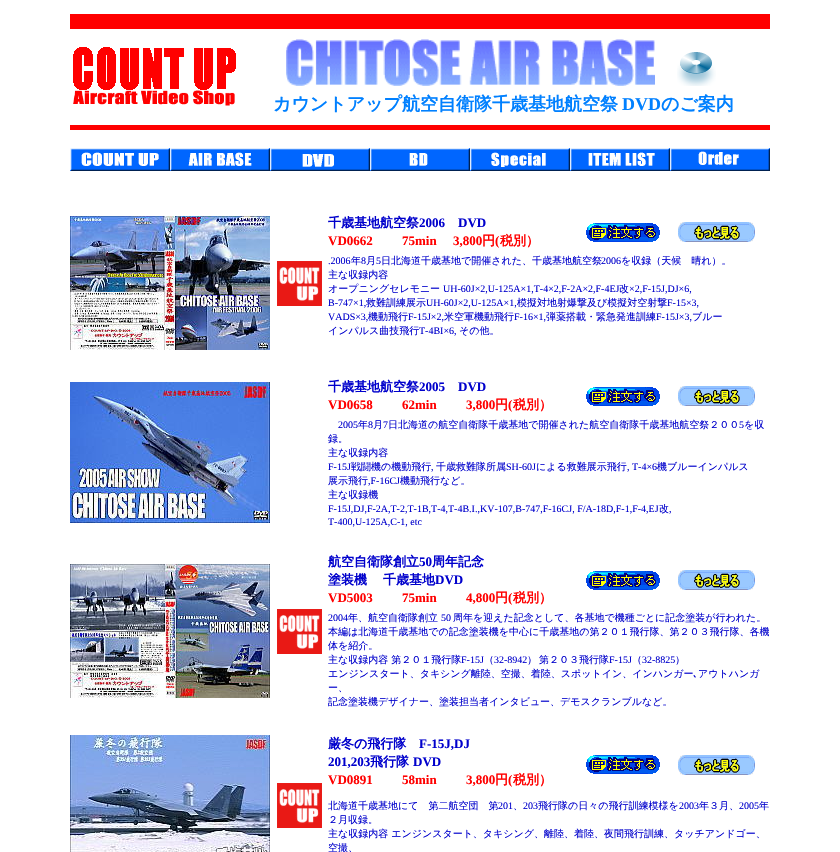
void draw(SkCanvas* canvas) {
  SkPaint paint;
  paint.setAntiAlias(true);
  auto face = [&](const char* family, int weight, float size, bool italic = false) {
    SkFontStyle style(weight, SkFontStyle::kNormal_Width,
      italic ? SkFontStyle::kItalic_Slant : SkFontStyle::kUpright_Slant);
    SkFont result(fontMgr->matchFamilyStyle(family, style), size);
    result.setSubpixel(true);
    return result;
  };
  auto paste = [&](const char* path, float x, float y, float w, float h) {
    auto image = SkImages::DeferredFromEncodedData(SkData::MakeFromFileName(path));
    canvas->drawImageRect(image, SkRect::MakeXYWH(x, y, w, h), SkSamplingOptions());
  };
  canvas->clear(0xffffffff);
  paint.setColor(0xffff0000);
  canvas->drawRect(SkRect::MakeXYWH(70, 14, 700, 15), paint);
  paste("img/1.png", 73, 47, 163, 43);
  paste("img/2.png", 73, 90, 162, 16);
  paste("img/3.png", 286, 39, 369, 47);
  paste("img/4.png", 677, 52, 39, 34);
  canvas->drawRect(SkRect::MakeXYWH(70, 125, 700, 5), paint);
  paste("img/5.png", 70, 148, 100, 23);
  paste("img/6.png", 170, 148, 100, 23);
  paste("img/7.png", 270, 148, 100, 23);
  paste("img/8.png", 370, 148, 100, 23);
  paste("img/9.png", 470, 148, 100, 23);
  paste("img/10.png", 570, 148, 100, 23);
  paste("img/11.png", 670, 148, 100, 23);
  paste("img/12.png", 70, 216, 200, 134);
  paste("img/13.png", 586, 223, 74, 19);
  paste("img/14.png", 678, 222, 77, 20);
  paste("img/15.png", 277, 261, 45, 45);
  paste("img/16.png", 70, 382, 200, 141);
  paste("img/13.png", 586, 387, 74, 19);
  paste("img/14.png", 678, 386, 77, 20);
  paste("img/17.png", 70, 564, 200, 134);
  paste("img/13.png", 586, 571, 74, 19);
  paste("img/14.png", 678, 570, 77, 20);
  paste("img/15.png", 277, 609, 45, 45);
  paste("img/18.png", 70, 735, 200, 117);
  paste("img/13.png", 586, 755, 74, 19);
  paste("img/14.png", 678, 755, 77, 20);
  paste("img/15.png", 277, 783, 45, 45);
  auto f0 = face("WenQuanYi Zen Hei", 700, 18);
  paint.setColor(0xff0080ff);
  canvas->drawString("カウントアップ航空自衛隊千歳基地航空祭", 273, 110, f0, paint);
  auto f1 = face("Liberation Serif", 700, 18);
  canvas->drawString("DVD", 622, 110, f1, paint);
  canvas->drawString("のご案内", 661, 110, f0, paint);
  auto f2 = face("WenQuanYi Zen Hei", 700, 13);
  paint.setColor(0xff0000cc);
  canvas->drawString("千歳基地航空祭", 328, 227, f2, paint);
  auto f3 = face("Liberation Serif", 700, 13);
  canvas->drawString("2006", 419, 227, f3, paint);
  canvas->drawString("DVD", 458, 227, f3, paint);
  paint.setColor(0xffff0000);
  {
    const struct { const char* s; float x, y; } items[] = {
      {"VD0662", 328, 245},
      {"75min", 402, 245},
      {"3,800", 453, 245},
    };
    for (auto [s, x, y] : items) {
      canvas->drawString(s, x, y, f3, paint);
    }
  }
  canvas->drawString("円", 482, 245, f2, paint);
  canvas->drawString("(", 495, 245, f3, paint);
  canvas->drawString("税別）", 500, 245, f2, paint);
  auto f4 = face("Liberation Serif", 400, 10);
  paint.setColor(0xff0000cc);
  canvas->drawString(".2006", 328, 264, f4, paint);
  auto f5 = face("WenQuanYi Zen Hei", 500, 10);
  canvas->drawString("年", 351, 264, f5, paint);
  canvas->drawString("8", 361, 264, f4, paint);
  canvas->drawString("月", 366, 264, f5, paint);
  canvas->drawString("5", 376, 264, f4, paint);
  canvas->drawString("日北海道千歳基地で開催された、千歳基地航空祭", 381, 264, f5, paint);
  canvas->drawString("2006", 601, 264, f4, paint);
  {
    const struct { const char* s; float x, y; } items[] = {
      {"を収録（天候　晴れ）。", 621, 264},
      {"主な収録内容", 328, 278},
      {"オープニングセレモニー", 328, 292},
    };
    for (auto [s, x, y] : items) {
      canvas->drawString(s, x, y, f5, paint);
    }
  }
  canvas->drawString("UH-60J×2,U-125A×1,T-4×2,F-2A×2,F-4EJ", 443, 292, f4, paint);
  canvas->drawString("改", 619, 292, f5, paint);
  canvas->drawString("×2,F-15J,DJ×6,", 629, 292, f4, paint);
  canvas->drawString("B-747×1,", 328, 306, f4, paint);
  canvas->drawString("救難訓練展示", 366, 306, f5, paint);
  canvas->drawString("UH-60J×2,U-125A×1,", 426, 306, f4, paint);
  canvas->drawString("模擬対地射爆撃及び模擬対空射撃", 517, 306, f5, paint);
  canvas->drawString("F-15×3,", 667, 306, f4, paint);
  canvas->drawString("VADS×3,", 328, 320, f4, paint);
  canvas->drawString("機動飛行", 368, 320, f5, paint);
  canvas->drawString("F-15J×2,", 408, 320, f4, paint);
  canvas->drawString("米空軍機動飛行", 444, 320, f5, paint);
  canvas->drawString("F-16×1,", 514, 320, f4, paint);
  canvas->drawString("弾薬搭載・緊急発進訓練", 546, 320, f5, paint);
  canvas->drawString("F-15J×3,", 656, 320, f4, paint);
  canvas->drawString("ブルー", 692, 320, f5, paint);
  canvas->drawString("インパルス曲技飛行", 328, 334, f5, paint);
  canvas->drawString("T-4BI×6,", 419, 334, f4, paint);
  canvas->drawString("その他。", 459, 334, f5, paint);
  canvas->drawString("千歳基地航空祭", 328, 391, f2, paint);
  canvas->drawString("2005", 419, 391, f3, paint);
  canvas->drawString("DVD", 458, 391, f3, paint);
  paint.setColor(0xffff0000);
  {
    const struct { const char* s; float x, y; } items[] = {
      {"VD0658", 328, 409},
      {"62min", 402, 409},
      {"3,800", 466, 409},
    };
    for (auto [s, x, y] : items) {
      canvas->drawString(s, x, y, f3, paint);
    }
  }
  canvas->drawString("円", 495, 409, f2, paint);
  canvas->drawString("(", 508, 409, f3, paint);
  canvas->drawString("税別）", 513, 409, f2, paint);
  paint.setColor(0xff0000cc);
  canvas->drawString("2005", 338, 428, f4, paint);
  canvas->drawString("年", 358, 428, f5, paint);
  canvas->drawString("8", 368, 428, f4, paint);
  canvas->drawString("月", 373, 428, f5, paint);
  canvas->drawString("7", 383, 428, f4, paint);
  canvas->drawString("日北海道の航空自衛隊千歳基地で開催された航空自衛隊千歳基地航空祭２００", 388, 428, f5, paint);
  canvas->drawString("5", 739, 428, f4, paint);
  {
    const struct { const char* s; float x, y; } items[] = {
      {"を収", 744, 428},
      {"録。", 328, 442},
      {"主な収録内容", 328, 456},
    };
    for (auto [s, x, y] : items) {
      canvas->drawString(s, x, y, f5, paint);
    }
  }
  canvas->drawString("F-15J", 328, 470, f4, paint);
  canvas->drawString("戦闘機の機動飛行", 351, 470, f5, paint);
  canvas->drawString(",", 431, 470, f4, paint);
  canvas->drawString("千歳救難隊所属", 436, 470, f5, paint);
  canvas->drawString("SH-60J", 506, 470, f4, paint);
  canvas->drawString("による救難展示飛行", 536, 470, f5, paint);
  canvas->drawString(", T-4×6", 627, 470, f4, paint);
  canvas->drawString("機ブルーインパルス", 657, 470, f5, paint);
  canvas->drawString("展示飛行", 328, 484, f5, paint);
  canvas->drawString(",F-16CJ", 368, 484, f4, paint);
  canvas->drawString("機動飛行など。", 400, 484, f5, paint);
  canvas->drawString("主な収録機", 328, 498, f5, paint);
  canvas->drawString("F-15J,DJ,F-2A,T-2,T-1B,T-4,T-4B.I.,KV-107,B-747,F-16CJ, F/A-18D,F-1,F-4,EJ", 328, 512, f4, paint);
  canvas->drawString("改", 659, 512, f5, paint);
  canvas->drawString(",", 669, 512, f4, paint);
  canvas->drawString("T-400,U-125A,C-1, etc", 328, 525, f4, paint);
  canvas->drawString("航空自衛隊創立", 328, 566, f2, paint);
  canvas->drawString("50", 419, 566, f3, paint);
  {
    const struct { const char* s; float x, y; } items[] = {
      {"周年記念", 432, 566},
      {"塗装機", 328, 584},
      {"千歳基地", 383, 584},
    };
    for (auto [s, x, y] : items) {
      canvas->drawString(s, x, y, f2, paint);
    }
  }
  canvas->drawString("DVD", 435, 584, f3, paint);
  paint.setColor(0xffff0000);
  {
    const struct { const char* s; float x, y; } items[] = {
      {"VD5003", 328, 602},
      {"75min", 402, 602},
      {"4,800", 466, 602},
    };
    for (auto [s, x, y] : items) {
      canvas->drawString(s, x, y, f3, paint);
    }
  }
  canvas->drawString("円", 495, 602, f2, paint);
  canvas->drawString("(", 508, 602, f3, paint);
  canvas->drawString("税別）", 513, 602, f2, paint);
  paint.setColor(0xff0000cc);
  canvas->drawString("2004", 328, 621, f4, paint);
  canvas->drawString("年、航空自衛隊創立", 348, 621, f5, paint);
  canvas->drawString("50", 441, 621, f4, paint);
  {
    const struct { const char* s; float x, y; } items[] = {
      {"周年を迎えた記念として、各基地で機種ごとに記念塗装が行われた。", 453, 621},
      {"本編は北海道千歳基地での記念塗装機を中心に千歳基地の第２０１飛行隊、第２０３飛行隊、各機", 328, 635},
      {"体を紹介。", 328, 649},
      {"主な収録内容 第２０１飛行隊", 328, 663},
    };
    for (auto [s, x, y] : items) {
      canvas->drawString(s, x, y, f5, paint);
    }
  }
  canvas->drawString("F-15J", 461, 663, f4, paint);
  canvas->drawString("（", 484, 663, f5, paint);
  canvas->drawString("32-8942", 494, 663, f4, paint);
  canvas->drawString("）", 527, 663, f5, paint);
  canvas->drawString("第２０３飛行隊", 539, 663, f5, paint);
  canvas->drawString("F-15J", 609, 663, f4, paint);
  canvas->drawString("（", 632, 663, f5, paint);
  canvas->drawString("32-8825", 642, 663, f4, paint);
  canvas->drawString("）", 675, 663, f5, paint);
  canvas->drawString("エンジンスタート、タキシング離陸、空撮、着陸、スポットイン、インハンガー", 328, 677, f5, paint);
  auto f6 = face("IPAGothic", 400, 10);
  canvas->drawString("､", 693, 677, f6, paint);
  {
    const struct { const char* s; float x, y; } items[] = {
      {"アウトハンガ", 698, 677},
      {"ー、", 328, 691},
      {"記念塗装機デザイナー、塗装担当者インタビュー、デモスクランブルなど。", 328, 705},
    };
    for (auto [s, x, y] : items) {
      canvas->drawString(s, x, y, f5, paint);
    }
  }
  canvas->drawString("厳冬の飛行隊", 328, 748, f2, paint);
  canvas->drawString("F-15J,DJ", 419, 748, f3, paint);
  canvas->drawString("201,203", 328, 766, f3, paint);
  canvas->drawString("飛行隊", 370, 766, f2, paint);
  canvas->drawString("DVD", 413, 766, f3, paint);
  paint.setColor(0xffff0000);
  {
    const struct { const char* s; float x, y; } items[] = {
      {"VD0891", 328, 784},
      {"58min", 402, 784},
      {"3,800", 466, 784},
    };
    for (auto [s, x, y] : items) {
      canvas->drawString(s, x, y, f3, paint);
    }
  }
  canvas->drawString("円", 495, 784, f2, paint);
  canvas->drawString("(", 508, 784, f3, paint);
  canvas->drawString("税別）", 513, 784, f2, paint);
  paint.setColor(0xff0000cc);
  canvas->drawString("北海道千歳基地にて　第二航空団　第", 328, 809, f5, paint);
  canvas->drawString("201", 498, 809, f4, paint);
  canvas->drawString("、", 513, 809, f5, paint);
  canvas->drawString("203", 523, 809, f4, paint);
  canvas->drawString("飛行隊の日々の飛行訓練模様を", 538, 809, f5, paint);
  canvas->drawString("2003", 679, 809, f4, paint);
  canvas->drawString("年３月、", 699, 809, f5, paint);
  canvas->drawString("2005", 739, 809, f4, paint);
  {
    const struct { const char* s; float x, y; } items[] = {
      {"年", 759, 809},
      {"２月収録。", 328, 823},
      {"主な収録内容 エンジンスタート、タキシング、離陸、着陸、夜間飛行訓練、タッチアンドゴー、", 328, 837},
      {"空撮、", 328, 851},
    };
    for (auto [s, x, y] : items) {
      canvas->drawString(s, x, y, f5, paint);
    }
  }
}
